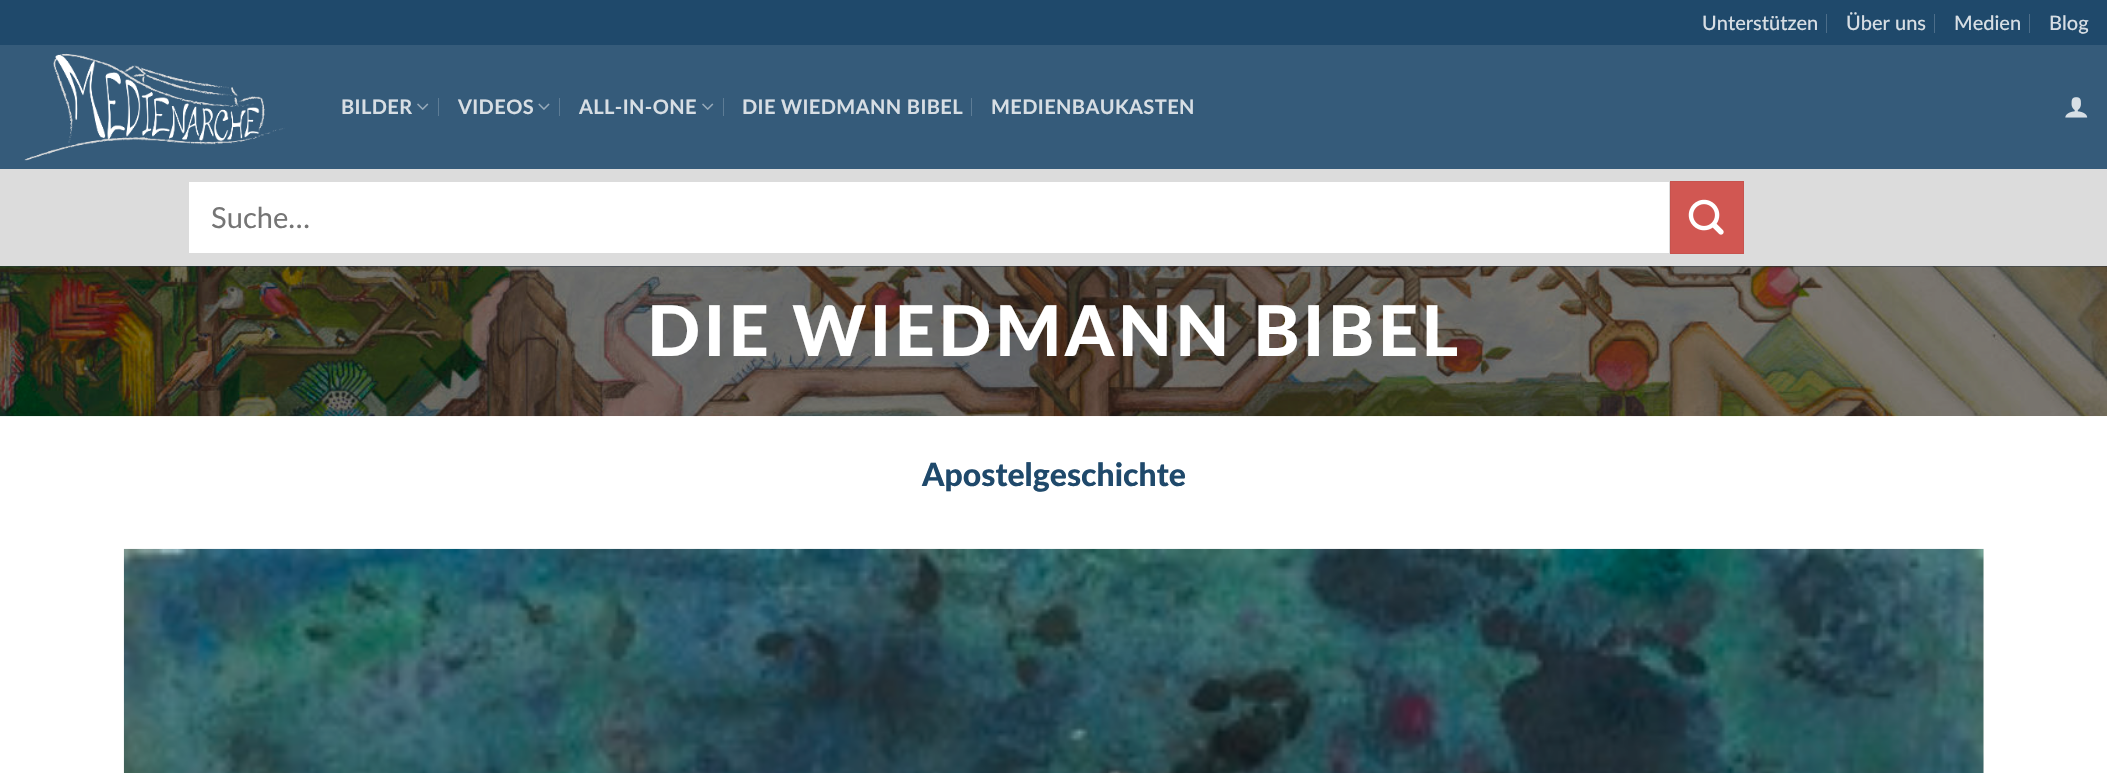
void draw(SkCanvas* canvas) {
  SkPaint paint;
  paint.setAntiAlias(true);
  auto face = [&](const char* family, int weight, float size, bool italic = false) {
    SkFontStyle style(weight, SkFontStyle::kNormal_Width,
      italic ? SkFontStyle::kItalic_Slant : SkFontStyle::kUpright_Slant);
    SkFont result(fontMgr->matchFamilyStyle(family, style), size);
    result.setSubpixel(true);
    return result;
  };
  auto writeSpaced = [&](const char* s, float x, float y, const SkFont& font, const SkPaint& ink, float letter, float word) {
    std::vector<SkGlyphID> glyphs(font.countText(s, strlen(s), SkTextEncoding::kUTF8));
    std::vector<float> xs(glyphs.size());
    font.textToGlyphs(s, strlen(s), SkTextEncoding::kUTF8, glyphs);
    font.getXPos(glyphs, xs, x);
    float extra = 0;
    for (size_t i = 0; i < glyphs.size(); i++) {
      xs[i] += extra;
      extra += letter + word * (glyphs[i] == font.unicharToGlyph(' '));
    }
    canvas->drawTextBlob(SkTextBlob::MakeFromPosHGlyphs(glyphs, xs, y, font), 0, 0, ink);
  };
  auto paste = [&](const char* path, float x, float y, float w, float h) {
    auto image = SkImages::DeferredFromEncodedData(SkData::MakeFromFileName(path));
    canvas->drawImageRect(image, SkRect::MakeXYWH(x, y, w, h), SkSamplingOptions());
  };
  canvas->clear(0xffffffff);
  {
    const struct { float x, y, w, h; SkColor color; } items[] = {
      {0, 0, 2107, 45, 0xff1f496b},
      {1826, 14, 1, 19, 0xff4c6d89},
      {1934, 14, 1, 19, 0xff4c6d89},
      {2029, 14, 1, 19, 0xff4c6d89},
      {0, 45, 2107, 124, 0xff355b7a},
    };
    for (auto [x, y, w, h, color] : items) {
      paint.setColor(color);
      canvas->drawRect(SkRect::MakeXYWH(x, y, w, h), paint);
    }
  }
  paste("img/1.png", 24, 53, 261, 108);
  paste("img/2.png", 417, 103, 12, 7);
  paint.setColor(0xff5d7c95);
  canvas->drawRect(SkRect::MakeXYWH(438, 98, 1, 18), paint);
  paste("img/3.png", 538, 103, 12, 7);
  canvas->drawRect(SkRect::MakeXYWH(559, 98, 1, 18), paint);
  paste("img/2.png", 702, 103, 12, 7);
  canvas->drawRect(SkRect::MakeXYWH(723, 98, 1, 18), paint);
  canvas->drawRect(SkRect::MakeXYWH(971, 98, 1, 18), paint);
  paste("img/4.png", 2065, 97, 23, 21);
  paint.setColor(0xffdcdcdc);
  canvas->drawRect(SkRect::MakeXYWH(0, 169, 2107, 97), paint);
  paint.setColor(0xffffffff);
  canvas->drawRect(SkRect::MakeXYWH(189, 182, 1480, 71), paint);
  paint.setColor(0xffd15752);
  canvas->drawRect(SkRect::MakeXYWH(1670.5f, 181.5f, 73, 72), paint);
  paint.setStroke(true);
  paint.setStrokeWidth(1);
  paint.setColor(0xffc7534e);
  canvas->drawRect(SkRect::MakeXYWH(1670.5f, 181.5f, 73, 72), paint);
  paste("img/5.png", 1688, 199, 36, 36);
  paint.setStroke(false);
  paint.setColor(0xff223042);
  canvas->drawRect(SkRect::MakeXYWH(0, 266, 2107, 1), paint);
  paste("img/6.png", 0, 266, 2107, 151);
  paste("img/7.png", 123, 548, 1861, 225);
  paste("img/8.png", 1983, 549, 1, 224);
  auto f0 = face("Lato", 500, 20);
  paint.setColor(0xffd7dee4);
  {
    const struct { const char* s; float x, y; } items[] = {
      {"Unterstützen", 1702, 30},
      {"Über uns", 1846, 30},
      {"Medien", 1954, 30},
      {"Blog", 2049, 30},
    };
    for (auto [s, x, y] : items) {
      canvas->drawString(s, x, y, f0, paint);
    }
  }
  auto f1 = face("Lato", 700, 20);
  {
    const struct { const char* s; float x, y; } items[] = {
      {"BILDER", 341, 114},
      {"VIDEOS", 458, 114},
      {"ALL-IN-ONE", 579, 114},
      {"DIE WIEDMANN BIBEL", 742, 114},
      {"MEDIENBAUKASTEN", 991, 114},
    };
    for (auto [s, x, y] : items) {
      writeSpaced(s, x, y, f1, paint, 0.4f, 0);
    }
  }
  auto f2 = face("Lato", 400, 29);
  paint.setColor(0xff757575);
  canvas->drawString("Suche…", 211, 228, f2, paint);
  auto f3 = face("Lato", 900, 70);
  paint.setColor(0xffffffff);
  writeSpaced("DIE WIEDMANN BIBEL", 647, 356, f3, paint, 3.5f, 0);
  auto f4 = face("Lato", 900, 32);
  paint.setColor(0xff1f496b);
  canvas->drawString("Apostelgeschichte", 922, 486, f4, paint);
}
